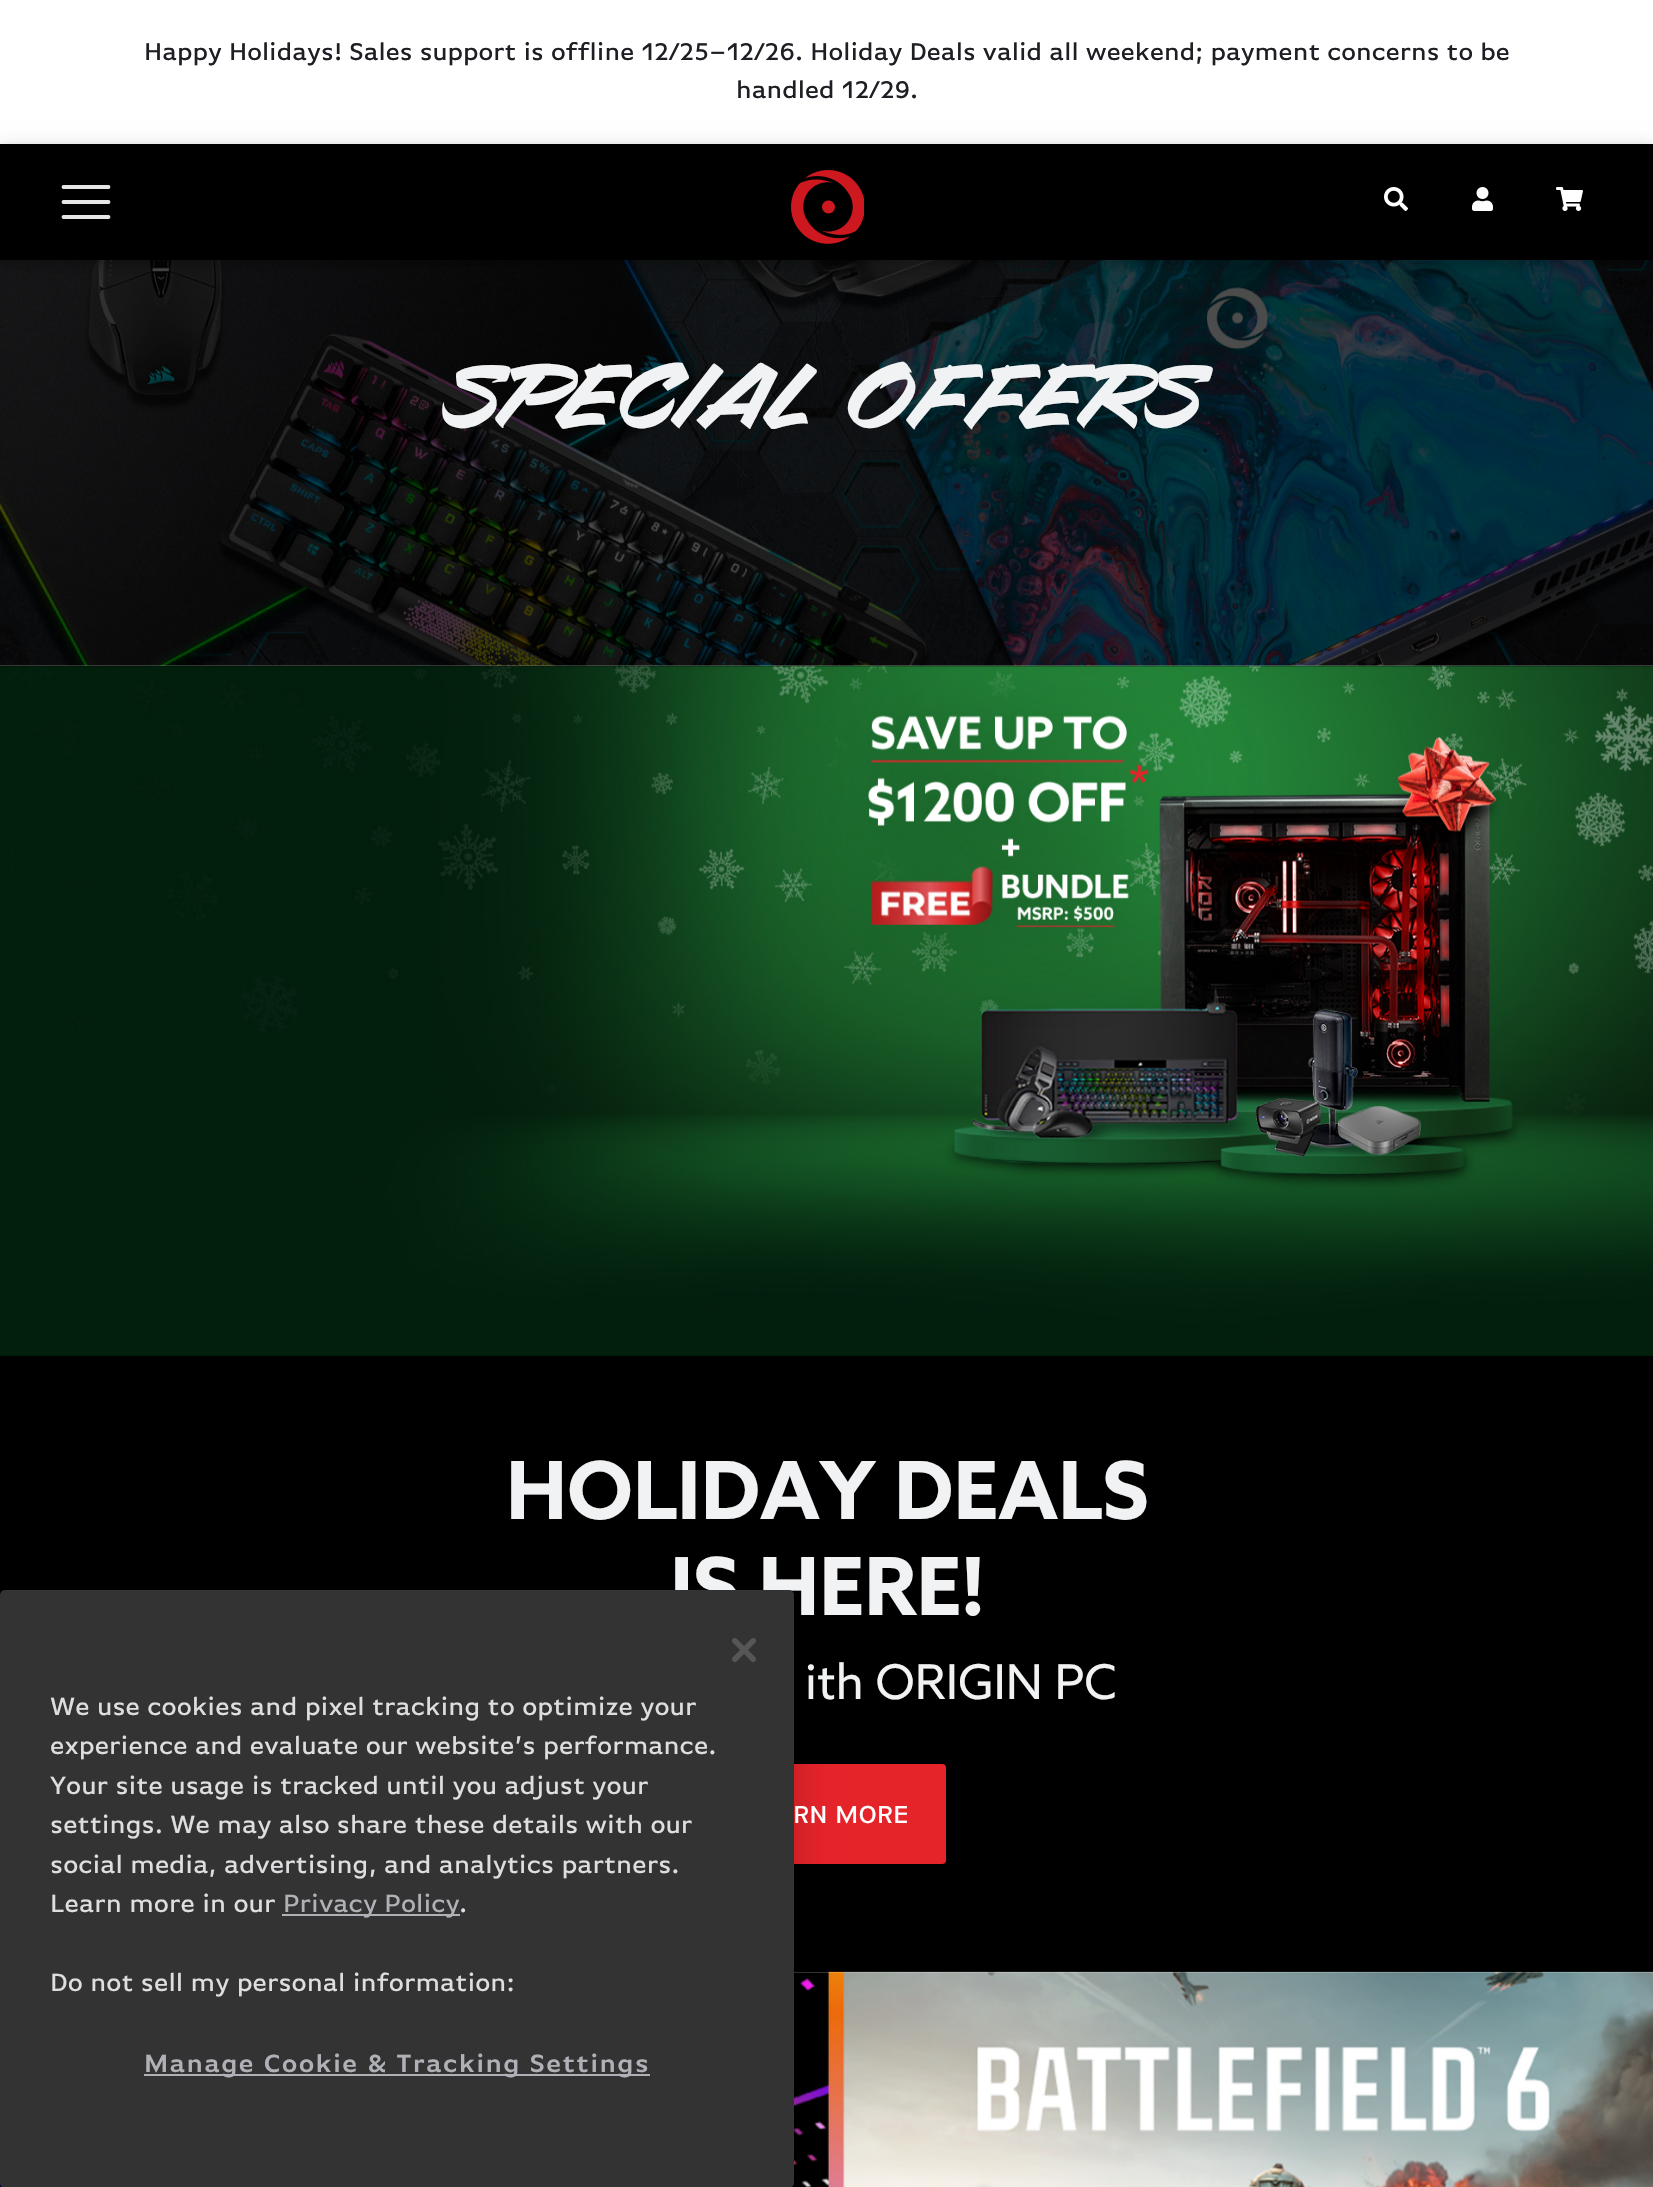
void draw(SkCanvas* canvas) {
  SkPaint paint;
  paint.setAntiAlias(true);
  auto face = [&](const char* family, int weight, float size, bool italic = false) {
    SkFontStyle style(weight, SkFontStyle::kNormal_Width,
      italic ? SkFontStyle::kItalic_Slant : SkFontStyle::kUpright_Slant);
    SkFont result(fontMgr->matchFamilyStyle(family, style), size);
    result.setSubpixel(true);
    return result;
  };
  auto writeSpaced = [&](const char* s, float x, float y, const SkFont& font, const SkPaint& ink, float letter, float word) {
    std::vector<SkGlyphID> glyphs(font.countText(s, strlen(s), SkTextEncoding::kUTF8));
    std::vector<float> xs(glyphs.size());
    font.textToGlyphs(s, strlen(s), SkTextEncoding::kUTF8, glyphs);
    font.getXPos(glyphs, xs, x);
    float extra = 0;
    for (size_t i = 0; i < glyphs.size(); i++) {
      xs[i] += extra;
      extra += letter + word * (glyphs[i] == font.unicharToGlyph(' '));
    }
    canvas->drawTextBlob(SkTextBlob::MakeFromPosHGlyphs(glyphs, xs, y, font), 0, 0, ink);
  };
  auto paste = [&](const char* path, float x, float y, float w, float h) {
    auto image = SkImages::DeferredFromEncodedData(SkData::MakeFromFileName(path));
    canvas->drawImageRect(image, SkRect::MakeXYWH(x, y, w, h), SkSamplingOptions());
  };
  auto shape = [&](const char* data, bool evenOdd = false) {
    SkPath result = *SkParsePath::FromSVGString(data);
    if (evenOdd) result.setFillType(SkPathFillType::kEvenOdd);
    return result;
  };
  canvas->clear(0xffffffff);
  paste("img/5.png", 0, 260, 1653, 406);
  paint.setColor(0x1f000000);
  paint.setMaskFilter(SkMaskFilter::MakeBlur(kNormal_SkBlurStyle, 10));
  canvas->drawRect(SkRect::MakeXYWH(0, 148, 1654, 116), paint);
  paint.setMaskFilter(nullptr);
  paint.setColor(0x29000000);
  paint.setMaskFilter(SkMaskFilter::MakeBlur(kNormal_SkBlurStyle, 5));
  canvas->drawRect(SkRect::MakeXYWH(0, 148, 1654, 116), paint);
  paint.setMaskFilter(nullptr);
  paint.setColor(0xff000000);
  canvas->drawRect(SkRect::MakeXYWH(0, 144, 1653, 116), paint);
  paint.setStroke(true);
  paint.setStrokeWidth(3.8f);
  paint.setStrokeCap(SkPaint::kRound_Cap);
  paint.setColor(0xffe6e6e6);
  canvas->drawPath(shape("M63.5 187H108.5M63.5 202H108.5M63.5 217H108.5"), paint);
  paste("img/1.png", 791, 170, 73, 74);
  paste("img/2.png", 1384, 187, 24, 24);
  paste("img/3.png", 1472, 187, 21, 24);
  paste("img/4.png", 1556, 187, 27, 24);
  paint.setStroke(false);
  paint.setColor(0xff000000);
  canvas->drawRect(SkRect::MakeXYWH(0, 666, 1653, 1306), paint);
  paste("img/6.png", 0, 665, 1653, 691);
  paint.setColor(0xffe5242a);
  canvas->drawRoundRect(SkRect::MakeXYWH(708, 1764, 238, 100), 4, 4, paint);
  paste("img/7.png", 0, 1971, 1653, 216);
  paint.setColor(0x33000000);
  paint.setMaskFilter(SkMaskFilter::MakeBlur(kNormal_SkBlurStyle, 18));
  canvas->drawRoundRect(SkRect::MakeXYWH(0, 1590, 794, 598), 5, 5, paint);
  paint.setMaskFilter(nullptr);
  auto f0 = face("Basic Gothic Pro", 500, 25.6f);
  paint.setColor(0xff1e1f24);
  canvas->drawString("Happy Holidays! Sales support is offline 12/25–12/26. Holiday Deals valid all weekend; payment concerns to be", 144, 60, f0, paint);
  canvas->drawString("handled 12/29.", 736, 98, f0, paint);
  auto f1 = face("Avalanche", 400, 125);
  paint.setColor(0xfff1f2f3);
  canvas->drawString("SPECIAL OFFERS", 448, 428, f1, paint);
  auto f2 = face("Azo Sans", 700, 80);
  canvas->drawString("HOLIDAY DEALS", 506, 1519, f2, paint);
  canvas->drawString("IS HERE!", 670, 1615, f2, paint);
  auto f3 = face("Azo Sans", 400, 48);
  canvas->drawString("ith ORIGIN PC", 805, 1699, f3, paint);
  auto f4 = face("Basic Gothic Pro", 500, 26);
  paint.setColor(0xffffffff);
  canvas->drawString("RN MORE", 793, 1823, f4, paint);
  paint.setColor(0xff333333);
  canvas->drawRoundRect(SkRect::MakeXYWH(0, 1590, 794, 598), 5, 5, paint);
  paste("img/8.png", 732, 1638, 24, 24);
  auto f5 = face("Basic Gothic Pro", 500, 26.25f);
  paint.setColor(0xffdddee0);
  {
    const struct { const char* s; float x, y; } items[] = {
      {"We use cookies and pixel tracking to optimize your", 50, 1715},
      {"experience and evaluate our website’s performance.", 50, 1754},
      {"Your site usage is tracked until you adjust your", 50, 1794},
      {"settings. We may also share these details with our", 50, 1833},
      {"social media, advertising, and analytics partners.", 50, 1873},
      {"Learn more in our", 50, 1912},
    };
    for (auto [s, x, y] : items) {
      canvas->drawString(s, x, y, f5, paint);
    }
  }
  paint.setColor(0xffb0b1b6);
  canvas->drawRect(SkRect::MakeXYWH(282, 1914, 178, 2), paint);
  canvas->drawString("Privacy Policy", 283, 1912, f5, paint);
  paint.setColor(0xffdddee0);
  canvas->drawString(".", 459, 1912, f5, paint);
  canvas->drawString("Do not sell my personal information:", 50, 1991, f5, paint);
  paint.setColor(0xffb0b1b6);
  canvas->drawRect(SkRect::MakeXYWH(144, 2074, 506, 2), paint);
  auto f6 = face("Basic Gothic Pro", 600, 26.25f);
  writeSpaced("Manage Cookie & Tracking Settings", 144, 2072, f6, paint, 1.3f, 0);
}
